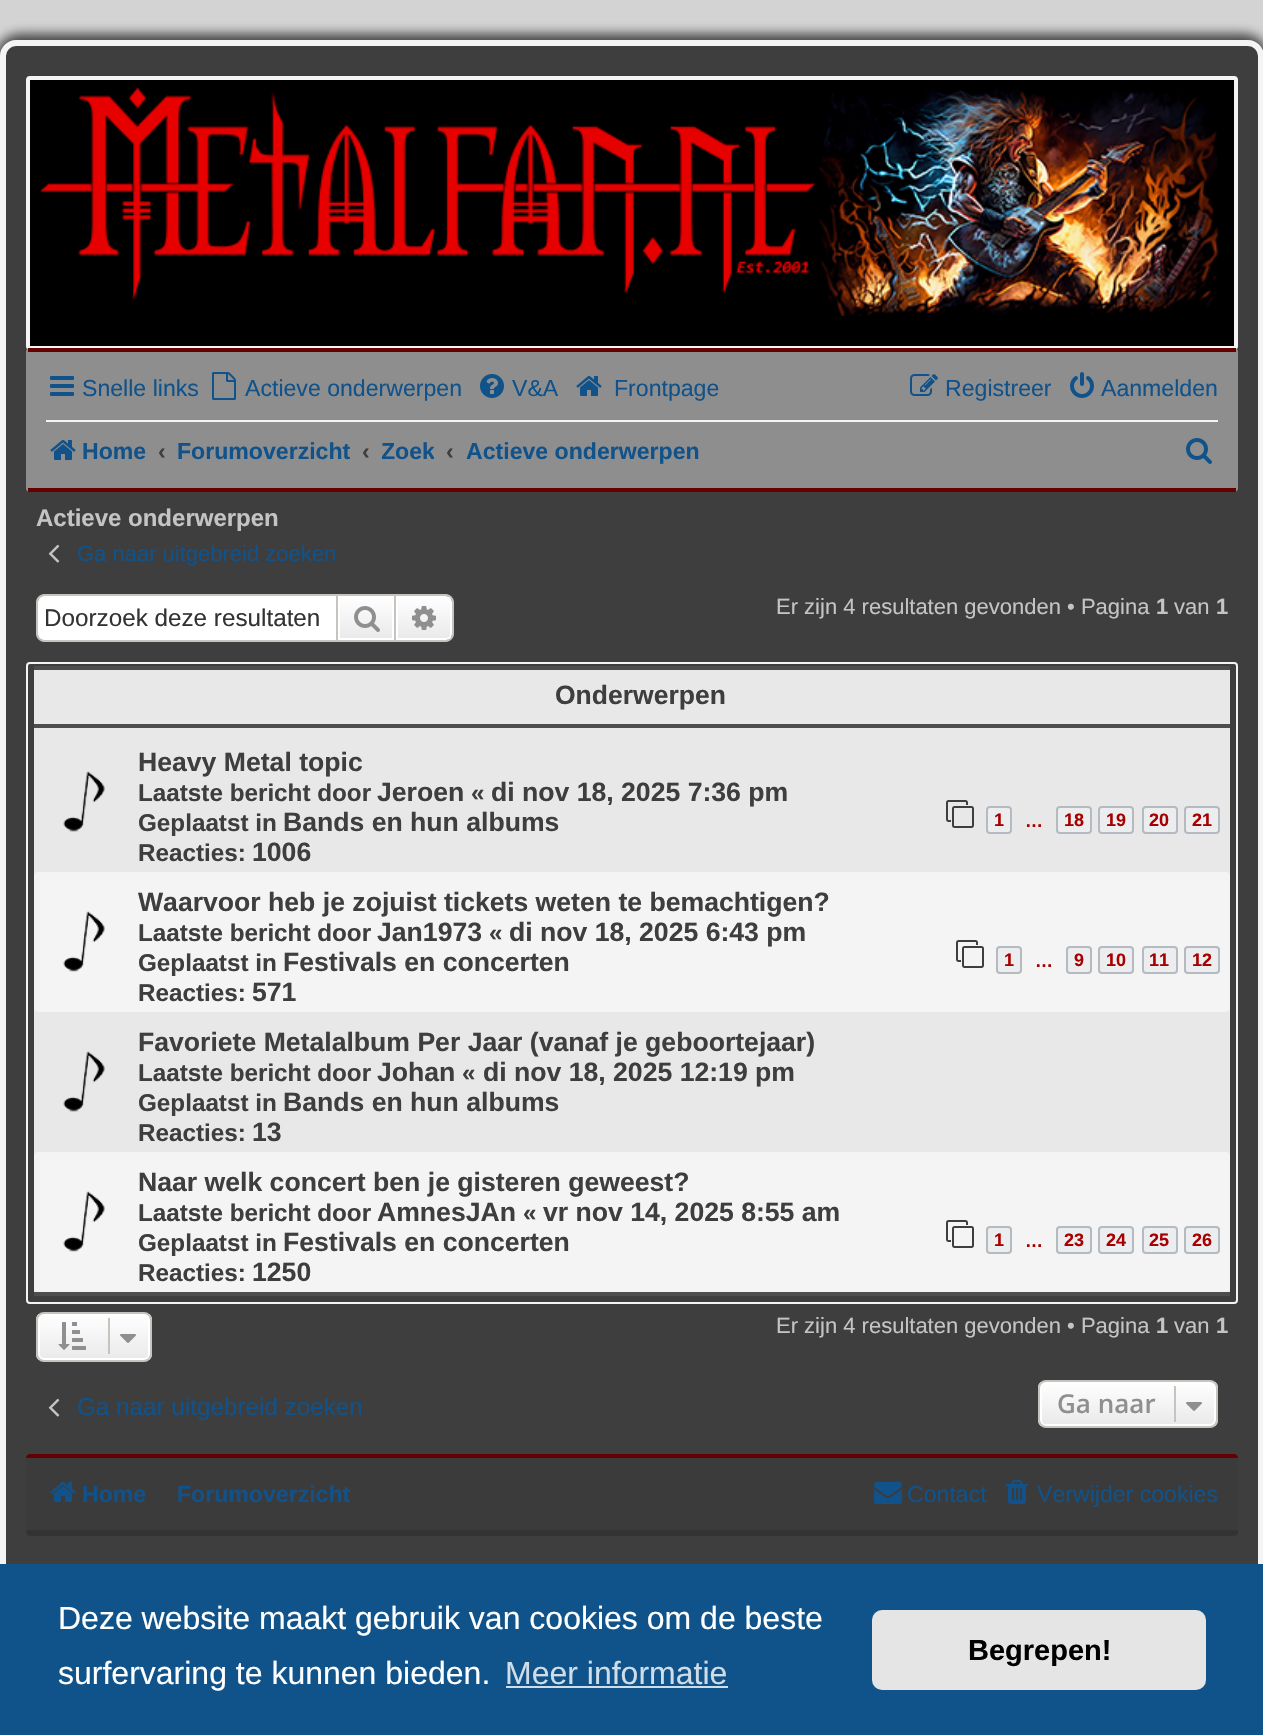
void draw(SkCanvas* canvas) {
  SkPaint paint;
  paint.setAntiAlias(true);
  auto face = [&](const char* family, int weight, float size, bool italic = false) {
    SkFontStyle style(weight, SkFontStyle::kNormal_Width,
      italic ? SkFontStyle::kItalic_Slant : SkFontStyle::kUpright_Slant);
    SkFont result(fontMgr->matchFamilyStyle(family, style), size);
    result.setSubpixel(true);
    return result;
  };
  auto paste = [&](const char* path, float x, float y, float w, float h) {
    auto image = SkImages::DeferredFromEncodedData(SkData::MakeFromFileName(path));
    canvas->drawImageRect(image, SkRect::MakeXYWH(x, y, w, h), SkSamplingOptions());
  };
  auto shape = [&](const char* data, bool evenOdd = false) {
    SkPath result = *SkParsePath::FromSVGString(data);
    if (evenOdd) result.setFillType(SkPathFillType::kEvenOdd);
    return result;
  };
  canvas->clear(0xffd3d3d3);
  paint.setColor(0xb3020202);
  paint.setMaskFilter(SkMaskFilter::MakeBlur(kNormal_SkBlurStyle, 6));
  canvas->drawRoundRect(SkRect::MakeXYWH(-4, 34, 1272, 1680), 24, 24, paint);
  paint.setMaskFilter(nullptr);
  paint.setColor(0xff3e3e3e);
  canvas->drawPath(shape("M16 43H1248C1255 43 1261 49 1261 56V1692C1261 1701.5 1253.5 1709 1244 1709H20C10.5 1709 3 1701.5 3 1692V56C3 49 9 43 16 43Z"), paint);
  paint.setStroke(true);
  paint.setStrokeWidth(6);
  paint.setColor(0xfff4f4f4);
  canvas->drawPath(shape("M16 43H1248C1255 43 1261 49 1261 56V1692C1261 1701.5 1253.5 1709 1244 1709H20C10.5 1709 3 1701.5 3 1692V56C3 49 9 43 16 43Z"), paint);
  paint.setStroke(false);
  paint.setColor(0xff000000);
  canvas->drawRoundRect(SkRect::MakeXYWH(28, 78, 1208, 270), 2, 2, paint);
  paint.setStroke(true);
  paint.setStrokeWidth(4);
  paint.setColor(0xfff4f4f4);
  canvas->drawRoundRect(SkRect::MakeXYWH(28, 78, 1208, 270), 2, 2, paint);
  paste("img/1.png", 40, 88, 1179, 228);
  paint.setStroke(false);
  paint.setColor(0xff8e8e8e);
  canvas->drawRoundRect(SkRect::MakeXYWH(26, 348, 1212, 144), 4, 4, paint);
  paint.setColor(0xff660000);
  canvas->drawRect(SkRect::MakeXYWH(28, 348, 1208, 4), paint);
  canvas->drawRect(SkRect::MakeXYWH(28, 488, 1208, 4), paint);
  paste("img/2.png", 50, 376, 24, 20);
  paste("img/3.png", 212, 372, 24, 28);
  paste("img/4.png", 480, 374, 24, 24);
  paste("img/5.png", 576, 376, 26, 20);
  paste("img/6.png", 910, 374, 28, 22);
  paste("img/7.png", 1070, 372, 24, 26);
  paint.setColor(0xfff4f4f4);
  canvas->drawRect(SkRect::MakeXYWH(46, 420, 1172, 2), paint);
  paste("img/5.png", 50, 440, 26, 20);
  paste("img/8.png", 1186, 438, 26, 26);
  paste("img/9.png", 48, 544, 12, 19);
  paint.setColor(0xffffffff);
  canvas->drawPath(shape("M44 596H336V640H44C40.5 640 38 637.5 38 634V602C38 598.5 40.5 596 44 596Z"), paint);
  paint.setColor(0xffc7c3bf);
  canvas->drawPath(shape("M44 594H336V642H44C40 642 36 638 36 634V602C36 598 40 594 44 594ZM44 596H336V640H44C41 640 38 637 38 634V602C38 599 41 596 44 596Z", true), paint);
  {
    const SkColor colors[] = {0xffffffff, 0xffe9e9e9};
    const float stops[] = {0, 1};
    const SkPoint ends[] = {{366, 596}, {366, 640}};
    paint.setShader(SkGradientShader::MakeLinear(ends, colors, stops, 2, SkTileMode::kClamp));
    paint.setAlpha(255);
  }
  canvas->drawRect(SkRect::MakeXYWH(340, 598, 52, 40), paint);
  paint.setStroke(true);
  paint.setStrokeWidth(2);
  paint.setShader(nullptr);
  paint.setColor(0xffffffff);
  canvas->drawRect(SkRect::MakeXYWH(339, 597, 54, 42), paint);
  paint.setColor(0xffc7c3bf);
  canvas->drawRect(SkRect::MakeXYWH(337, 595, 58, 46), paint);
  paste("img/10.png", 354, 606, 26, 26);
  paint.setStroke(false);
  {
    const SkColor colors[] = {0xffffffff, 0xffe9e9e9};
    const float stops[] = {0, 1};
    const SkPoint ends[] = {{424, 596}, {424, 640}};
    paint.setShader(SkGradientShader::MakeLinear(ends, colors, stops, 2, SkTileMode::kClamp));
    paint.setAlpha(255);
  }
  canvas->drawPath(shape("M397 597H446C449 597 451 599 451 602V634C451 637 449 639 446 639H397Z"), paint);
  paint.setStroke(true);
  paint.setShader(nullptr);
  paint.setColor(0xffffffff);
  canvas->drawPath(shape("M397 597H446C449 597 451 599 451 602V634C451 637 449 639 446 639H397Z"), paint);
  paint.setStroke(false);
  paint.setColor(0xffc7c3bf);
  canvas->drawPath(shape("M396 594H446C450 594 454 598 454 602V634C454 638 450 642 446 642H396ZM396 596H446C449 596 452 599 452 602V634C452 637 449 640 446 640H396Z", true), paint);
  paste("img/11.png", 412, 606, 24, 24);
  paint.setStroke(true);
  paint.setColor(0xfff4f4f4);
  canvas->drawRoundRect(SkRect::MakeXYWH(27, 663, 1210, 640), 3, 3, paint);
  paint.setStroke(false);
  {
    const struct { float x, y, w, h; SkColor color; } items[] = {
      {34, 670, 1196, 54, 0xffe8e8e8},
      {34, 666, 1196, 4, 0xff4e4e4e},
      {34, 728, 1196, 564, 0xffe8e8e8},
      {34, 724, 1196, 4, 0xff4e4e4e},
      {34, 1292, 1196, 4, 0xff4e4e4e},
    };
    for (auto [x, y, w, h, color] : items) {
      paint.setColor(color);
      canvas->drawRect(SkRect::MakeXYWH(x, y, w, h), paint);
    }
  }
  paste("img/12.png", 63, 771, 42, 61);
  paste("img/13.png", 946, 800, 28, 28);
  paint.setColor(0xffecedee);
  canvas->drawRoundRect(SkRect::MakeXYWH(987, 807, 24, 26), 3, 3, paint);
  paint.setStroke(true);
  paint.setColor(0xffb4bac0);
  canvas->drawRoundRect(SkRect::MakeXYWH(987, 807, 24, 26), 3, 3, paint);
  paint.setStroke(false);
  paint.setColor(0xffecedee);
  canvas->drawRoundRect(SkRect::MakeXYWH(1057, 807, 34, 26), 3, 3, paint);
  paint.setStroke(true);
  paint.setColor(0xffb4bac0);
  canvas->drawRoundRect(SkRect::MakeXYWH(1057, 807, 34, 26), 3, 3, paint);
  paint.setStroke(false);
  paint.setColor(0xffecedee);
  canvas->drawRoundRect(SkRect::MakeXYWH(1099, 807, 34, 26), 3, 3, paint);
  paint.setStroke(true);
  paint.setColor(0xffb4bac0);
  canvas->drawRoundRect(SkRect::MakeXYWH(1099, 807, 34, 26), 3, 3, paint);
  paint.setStroke(false);
  paint.setColor(0xffecedee);
  canvas->drawRoundRect(SkRect::MakeXYWH(1143, 807, 34, 26), 3, 3, paint);
  paint.setStroke(true);
  paint.setColor(0xffb4bac0);
  canvas->drawRoundRect(SkRect::MakeXYWH(1143, 807, 34, 26), 3, 3, paint);
  paint.setStroke(false);
  paint.setColor(0xffecedee);
  canvas->drawRoundRect(SkRect::MakeXYWH(1185, 807, 34, 26), 3, 3, paint);
  paint.setStroke(true);
  paint.setColor(0xffb4bac0);
  canvas->drawRoundRect(SkRect::MakeXYWH(1185, 807, 34, 26), 3, 3, paint);
  paint.setStroke(false);
  paint.setColor(0xfff4f4f4);
  canvas->drawRoundRect(SkRect::MakeXYWH(34, 872, 1196, 140), 4, 4, paint);
  paste("img/14.png", 63, 911, 42, 61);
  paste("img/15.png", 956, 940, 28, 28);
  paint.setColor(0xffecedee);
  canvas->drawRoundRect(SkRect::MakeXYWH(997, 947, 24, 26), 3, 3, paint);
  paint.setStroke(true);
  paint.setColor(0xffb4bac0);
  canvas->drawRoundRect(SkRect::MakeXYWH(997, 947, 24, 26), 3, 3, paint);
  paint.setStroke(false);
  paint.setColor(0xffecedee);
  canvas->drawRoundRect(SkRect::MakeXYWH(1067, 947, 24, 26), 3, 3, paint);
  paint.setStroke(true);
  paint.setColor(0xffb4bac0);
  canvas->drawRoundRect(SkRect::MakeXYWH(1067, 947, 24, 26), 3, 3, paint);
  paint.setStroke(false);
  paint.setColor(0xffecedee);
  canvas->drawRoundRect(SkRect::MakeXYWH(1099, 947, 34, 26), 3, 3, paint);
  paint.setStroke(true);
  paint.setColor(0xffb4bac0);
  canvas->drawRoundRect(SkRect::MakeXYWH(1099, 947, 34, 26), 3, 3, paint);
  paint.setStroke(false);
  paint.setColor(0xffecedee);
  canvas->drawRoundRect(SkRect::MakeXYWH(1143, 947, 34, 26), 3, 3, paint);
  paint.setStroke(true);
  paint.setColor(0xffb4bac0);
  canvas->drawRoundRect(SkRect::MakeXYWH(1143, 947, 34, 26), 3, 3, paint);
  paint.setStroke(false);
  paint.setColor(0xffecedee);
  canvas->drawRoundRect(SkRect::MakeXYWH(1185, 947, 34, 26), 3, 3, paint);
  paint.setStroke(true);
  paint.setColor(0xffb4bac0);
  canvas->drawRoundRect(SkRect::MakeXYWH(1185, 947, 34, 26), 3, 3, paint);
  paste("img/16.png", 63, 1051, 42, 61);
  paint.setStroke(false);
  paint.setColor(0xfff4f4f4);
  canvas->drawRoundRect(SkRect::MakeXYWH(34, 1152, 1196, 140), 4, 4, paint);
  paste("img/14.png", 63, 1191, 42, 61);
  paste("img/15.png", 946, 1220, 28, 28);
  paint.setColor(0xffecedee);
  canvas->drawRoundRect(SkRect::MakeXYWH(987, 1227, 24, 26), 3, 3, paint);
  paint.setStroke(true);
  paint.setColor(0xffb4bac0);
  canvas->drawRoundRect(SkRect::MakeXYWH(987, 1227, 24, 26), 3, 3, paint);
  paint.setStroke(false);
  paint.setColor(0xffecedee);
  canvas->drawRoundRect(SkRect::MakeXYWH(1057, 1227, 34, 26), 3, 3, paint);
  paint.setStroke(true);
  paint.setColor(0xffb4bac0);
  canvas->drawRoundRect(SkRect::MakeXYWH(1057, 1227, 34, 26), 3, 3, paint);
  paint.setStroke(false);
  paint.setColor(0xffecedee);
  canvas->drawRoundRect(SkRect::MakeXYWH(1099, 1227, 34, 26), 3, 3, paint);
  paint.setStroke(true);
  paint.setColor(0xffb4bac0);
  canvas->drawRoundRect(SkRect::MakeXYWH(1099, 1227, 34, 26), 3, 3, paint);
  paint.setStroke(false);
  paint.setColor(0xffecedee);
  canvas->drawRoundRect(SkRect::MakeXYWH(1143, 1227, 34, 26), 3, 3, paint);
  paint.setStroke(true);
  paint.setColor(0xffb4bac0);
  canvas->drawRoundRect(SkRect::MakeXYWH(1143, 1227, 34, 26), 3, 3, paint);
  paint.setStroke(false);
  paint.setColor(0xffecedee);
  canvas->drawRoundRect(SkRect::MakeXYWH(1185, 1227, 34, 26), 3, 3, paint);
  paint.setStroke(true);
  paint.setColor(0xffb4bac0);
  canvas->drawRoundRect(SkRect::MakeXYWH(1185, 1227, 34, 26), 3, 3, paint);
  canvas->save();
  canvas->clipPath(shape("M44 1312H144C148.5 1312 152 1315.5 152 1320V1354C152 1358.5 148.5 1362 144 1362H44C39.5 1362 36 1358.5 36 1354V1320C36 1315.5 39.5 1312 44 1312Z"), true);
  paint.setStroke(false);
  {
    const SkColor colors[] = {0xffffffff, 0xffe9e9e9};
    const float stops[] = {0, 1};
    const SkPoint ends[] = {{94, 1314}, {94, 1360}};
    paint.setShader(SkGradientShader::MakeLinear(ends, colors, stops, 2, SkTileMode::kClamp));
    paint.setAlpha(255);
  }
  canvas->drawRect(SkRect::MakeXYWH(36, 1314, 116, 46), paint);
  canvas->restore();
  paint.setStroke(true);
  paint.setShader(nullptr);
  paint.setColor(0xffffffff);
  canvas->drawRoundRect(SkRect::MakeXYWH(39, 1315, 110, 44), 5, 5, paint);
  paint.setColor(0xffc7c3bf);
  canvas->drawRoundRect(SkRect::MakeXYWH(37, 1313, 114, 48), 7, 7, paint);
  paste("img/17.png", 58, 1322, 28, 28);
  paint.setStroke(false);
  canvas->drawRect(SkRect::MakeXYWH(108, 1318, 2, 36), paint);
  paste("img/18.png", 120, 1334, 16, 9);
  paste("img/9.png", 48, 1398, 12, 19);
  canvas->save();
  canvas->clipPath(shape("M1046 1380H1210C1214.5 1380 1218 1383.5 1218 1388V1420C1218 1424.5 1214.5 1428 1210 1428H1046C1041.5 1428 1038 1424.5 1038 1420V1388C1038 1383.5 1041.5 1380 1046 1380Z"), true);
  {
    const SkColor colors[] = {0xffffffff, 0xffe9e9e9};
    const float stops[] = {0, 1};
    const SkPoint ends[] = {{1128, 1382}, {1128, 1426}};
    paint.setShader(SkGradientShader::MakeLinear(ends, colors, stops, 2, SkTileMode::kClamp));
    paint.setAlpha(255);
  }
  canvas->drawRect(SkRect::MakeXYWH(1038, 1382, 180, 44), paint);
  canvas->restore();
  paint.setStroke(true);
  paint.setShader(nullptr);
  paint.setColor(0xffffffff);
  canvas->drawRoundRect(SkRect::MakeXYWH(1041, 1383, 174, 42), 5, 5, paint);
  paint.setColor(0xffc7c3bf);
  canvas->drawRoundRect(SkRect::MakeXYWH(1039, 1381, 178, 46), 7, 7, paint);
  paint.setStroke(false);
  canvas->drawRect(SkRect::MakeXYWH(1174, 1386, 2, 36), paint);
  paste("img/19.png", 1186, 1402, 16, 9);
  paint.setColor(0xff3b3b3b);
  canvas->drawRoundRect(SkRect::MakeXYWH(26, 1454, 1212, 82), 4, 4, paint);
  paint.setColor(0xff660000);
  canvas->drawPath(shape("M30 1454C28 1454 26 1456 26 1458H1238C1238 1456 1236 1454 1234 1454Z"), paint);
  paint.setColor(0xff333333);
  canvas->drawPath(shape("M1238 1532V1530H26C26 1533 27 1536 30 1536H1234C1236 1536 1238 1534 1238 1532Z"), paint);
  paste("img/20.png", 50, 1482, 26, 20);
  paste("img/21.png", 874, 1482, 28, 22);
  paste("img/22.png", 1006, 1480, 22, 24);
  paint.setColor(0xff0f538a);
  canvas->drawRect(SkRect::MakeXYWH(0, 1564, 1263, 171), paint);
  paint.setColor(0xffcfdde8);
  canvas->drawRect(SkRect::MakeXYWH(506, 1686, 222, 2), paint);
  paint.setColor(0xffe5e5e5);
  canvas->drawRoundRect(SkRect::MakeXYWH(872, 1610, 334, 80), 10, 10, paint);
  auto f0 = face("Liberation Sans", 400, 23.1f);
  paint.setColor(0xff105289);
  {
    const struct { const char* s; float x, y; } items[] = {
      {"Snelle links", 82, 396},
      {"Actieve onderwerpen", 245, 396},
      {"V&A", 512, 396},
      {"Frontpage", 614, 396},
      {"Registreer", 945, 396},
      {"Aanmelden", 1101, 396},
    };
    for (auto [s, x, y] : items) {
      canvas->drawString(s, x, y, f0, paint);
    }
  }
  auto f1 = face("Liberation Sans", 700, 23.1f);
  canvas->drawString("Home", 82, 459, f1, paint);
  paint.setColor(0xff3e3e3e);
  canvas->drawString("‹", 158, 459, f1, paint);
  paint.setColor(0xff105289);
  canvas->drawString("Forumoverzicht", 177, 459, f1, paint);
  paint.setColor(0xff3e3e3e);
  canvas->drawString("‹", 362, 459, f1, paint);
  canvas->save();
  canvas->clipRect(SkRect::MakeXYWH(382, 428, 52, 50));
  paint.setColor(0xff105289);
  canvas->drawString("Zoek", 381, 459, f1, paint);
  canvas->restore();
  paint.setColor(0xff3e3e3e);
  canvas->drawString("‹", 446, 459, f1, paint);
  paint.setColor(0xff105289);
  canvas->drawString("Actieve onderwerpen", 466, 459, f1, paint);
  auto f2 = face("Liberation Sans", 700, 24);
  paint.setColor(0xffc4c4c4);
  canvas->drawString("Actieve onderwerpen", 36, 526, f2, paint);
  auto f3 = face("Liberation Sans", 400, 22);
  paint.setColor(0xff105289);
  canvas->drawString("Ga naar uitgebreid zoeken", 77, 561, f3, paint);
  auto f4 = face("Liberation Sans", 400, 24.25f);
  paint.setColor(0xff333333);
  canvas->drawString("Doorzoek deze resultaten", 44, 626, f4, paint);
  paint.setColor(0xffc4c4c4);
  canvas->drawString("Er zijn 4 resultaten gevonden • Pagina", 776, 614, f3, paint);
  auto f5 = face("Liberation Sans", 700, 22);
  canvas->drawString("1", 1156, 614, f5, paint);
  canvas->drawString("van", 1174, 614, f3, paint);
  canvas->drawString("1", 1216, 614, f5, paint);
  auto f6 = face("Liberation Sans", 700, 26.5f);
  paint.setColor(0xff3e3e3e);
  canvas->drawString("Onderwerpen", 555, 704, f6, paint);
  auto f7 = face("Liberation Sans", 700, 26.6f);
  canvas->drawString("Heavy Metal topic", 138, 771, f7, paint);
  auto f8 = face("Liberation Sans", 700, 24.25f);
  canvas->drawString("Laatste bericht door", 138, 801, f8, paint);
  canvas->drawString("Jeroen", 377, 801, f7, paint);
  canvas->drawString("«", 471, 801, f8, paint);
  canvas->drawString("di nov 18, 2025 7:36 pm", 491, 801, f7, paint);
  canvas->drawString("Geplaatst in", 138, 831, f8, paint);
  canvas->drawString("Bands en hun albums", 283, 831, f7, paint);
  auto f9 = face("Liberation Sans", 700, 18);
  paint.setColor(0xffa70000);
  {
    const struct { const char* s; float x, y; } items[] = {
      {"1", 994, 826},
      {"…", 1025, 827},
      {"18", 1064, 826},
      {"19", 1106, 826},
      {"20", 1149, 826},
      {"21", 1192, 826},
    };
    for (auto [s, x, y] : items) {
      canvas->drawString(s, x, y, f9, paint);
    }
  }
  paint.setColor(0xff3e3e3e);
  canvas->drawString("Reacties:", 138, 861, f8, paint);
  canvas->drawString("1006", 252, 861, f7, paint);
  canvas->drawString("Waarvoor heb je zojuist tickets weten te bemachtigen?", 138, 911, f7, paint);
  canvas->drawString("Laatste bericht door", 138, 941, f8, paint);
  canvas->drawString("Jan1973", 377, 941, f7, paint);
  canvas->drawString("«", 489, 941, f8, paint);
  canvas->drawString("di nov 18, 2025 6:43 pm", 509, 941, f7, paint);
  canvas->drawString("Geplaatst in", 138, 971, f8, paint);
  canvas->drawString("Festivals en concerten", 283, 971, f7, paint);
  paint.setColor(0xffa70000);
  {
    const struct { const char* s; float x, y; } items[] = {
      {"1", 1004, 966},
      {"…", 1035, 967},
      {"9", 1074, 966},
      {"10", 1106, 966},
      {"11", 1149, 966},
      {"12", 1192, 966},
    };
    for (auto [s, x, y] : items) {
      canvas->drawString(s, x, y, f9, paint);
    }
  }
  paint.setColor(0xff3e3e3e);
  canvas->drawString("Reacties:", 138, 1001, f8, paint);
  canvas->drawString("571", 252, 1001, f7, paint);
  canvas->drawString("Favoriete Metalalbum Per Jaar (vanaf je geboortejaar)", 138, 1051, f7, paint);
  canvas->drawString("Laatste bericht door", 138, 1081, f8, paint);
  canvas->drawString("Johan", 377, 1081, f7, paint);
  canvas->drawString("«", 462, 1081, f8, paint);
  canvas->drawString("di nov 18, 2025 12:19 pm", 483, 1081, f7, paint);
  canvas->drawString("Geplaatst in", 138, 1111, f8, paint);
  canvas->drawString("Bands en hun albums", 283, 1111, f7, paint);
  canvas->drawString("Reacties:", 138, 1141, f8, paint);
  canvas->drawString("13", 252, 1141, f7, paint);
  canvas->drawString("Naar welk concert ben je gisteren geweest?", 138, 1191, f7, paint);
  canvas->drawString("Laatste bericht door", 138, 1221, f8, paint);
  canvas->drawString("AmnesJAn", 377, 1221, f7, paint);
  canvas->drawString("«", 523, 1221, f8, paint);
  canvas->drawString("vr nov 14, 2025 8:55 am", 543, 1221, f7, paint);
  canvas->drawString("Geplaatst in", 138, 1251, f8, paint);
  canvas->drawString("Festivals en concerten", 283, 1251, f7, paint);
  paint.setColor(0xffa70000);
  {
    const struct { const char* s; float x, y; } items[] = {
      {"1", 994, 1246},
      {"…", 1025, 1247},
      {"23", 1064, 1246},
      {"24", 1106, 1246},
      {"25", 1149, 1246},
      {"26", 1192, 1246},
    };
    for (auto [s, x, y] : items) {
      canvas->drawString(s, x, y, f9, paint);
    }
  }
  paint.setColor(0xff3e3e3e);
  canvas->drawString("Reacties:", 138, 1281, f8, paint);
  canvas->drawString("1250", 252, 1281, f7, paint);
  paint.setColor(0xffc4c4c4);
  canvas->drawString("Er zijn 4 resultaten gevonden • Pagina", 776, 1333, f3, paint);
  canvas->drawString("1", 1156, 1333, f5, paint);
  canvas->drawString("van", 1174, 1333, f3, paint);
  canvas->drawString("1", 1216, 1333, f5, paint);
  paint.setColor(0xff105289);
  canvas->drawString("Ga naar uitgebreid zoeken", 77, 1415, f4, paint);
  auto f10 = face("Open Sans", 600, 26);
  paint.setColor(0xff8f8f8f);
  canvas->drawString("Ga naar", 1057, 1413, f10, paint);
  paint.setColor(0xff105289);
  canvas->drawString("Home", 82, 1502, f1, paint);
  canvas->drawString("Forumoverzicht", 177, 1502, f1, paint);
  canvas->drawString("Contact", 907, 1502, f0, paint);
  canvas->drawString("Verwijder cookies", 1037, 1502, f0, paint);
  auto f11 = face("Liberation Sans", 400, 32);
  paint.setColor(0xffffffff);
  canvas->drawString("Deze website maakt gebruik van cookies om de beste", 58, 1629, f11, paint);
  canvas->drawString("surfervaring te kunnen bieden.", 58, 1684, f11, paint);
  paint.setColor(0xffcfdde8);
  canvas->drawString("Meer informatie", 505, 1684, f11, paint);
  auto f12 = face("Liberation Sans", 700, 29);
  paint.setColor(0xff000000);
  canvas->drawString("Begrepen!", 968, 1660, f12, paint);
}
